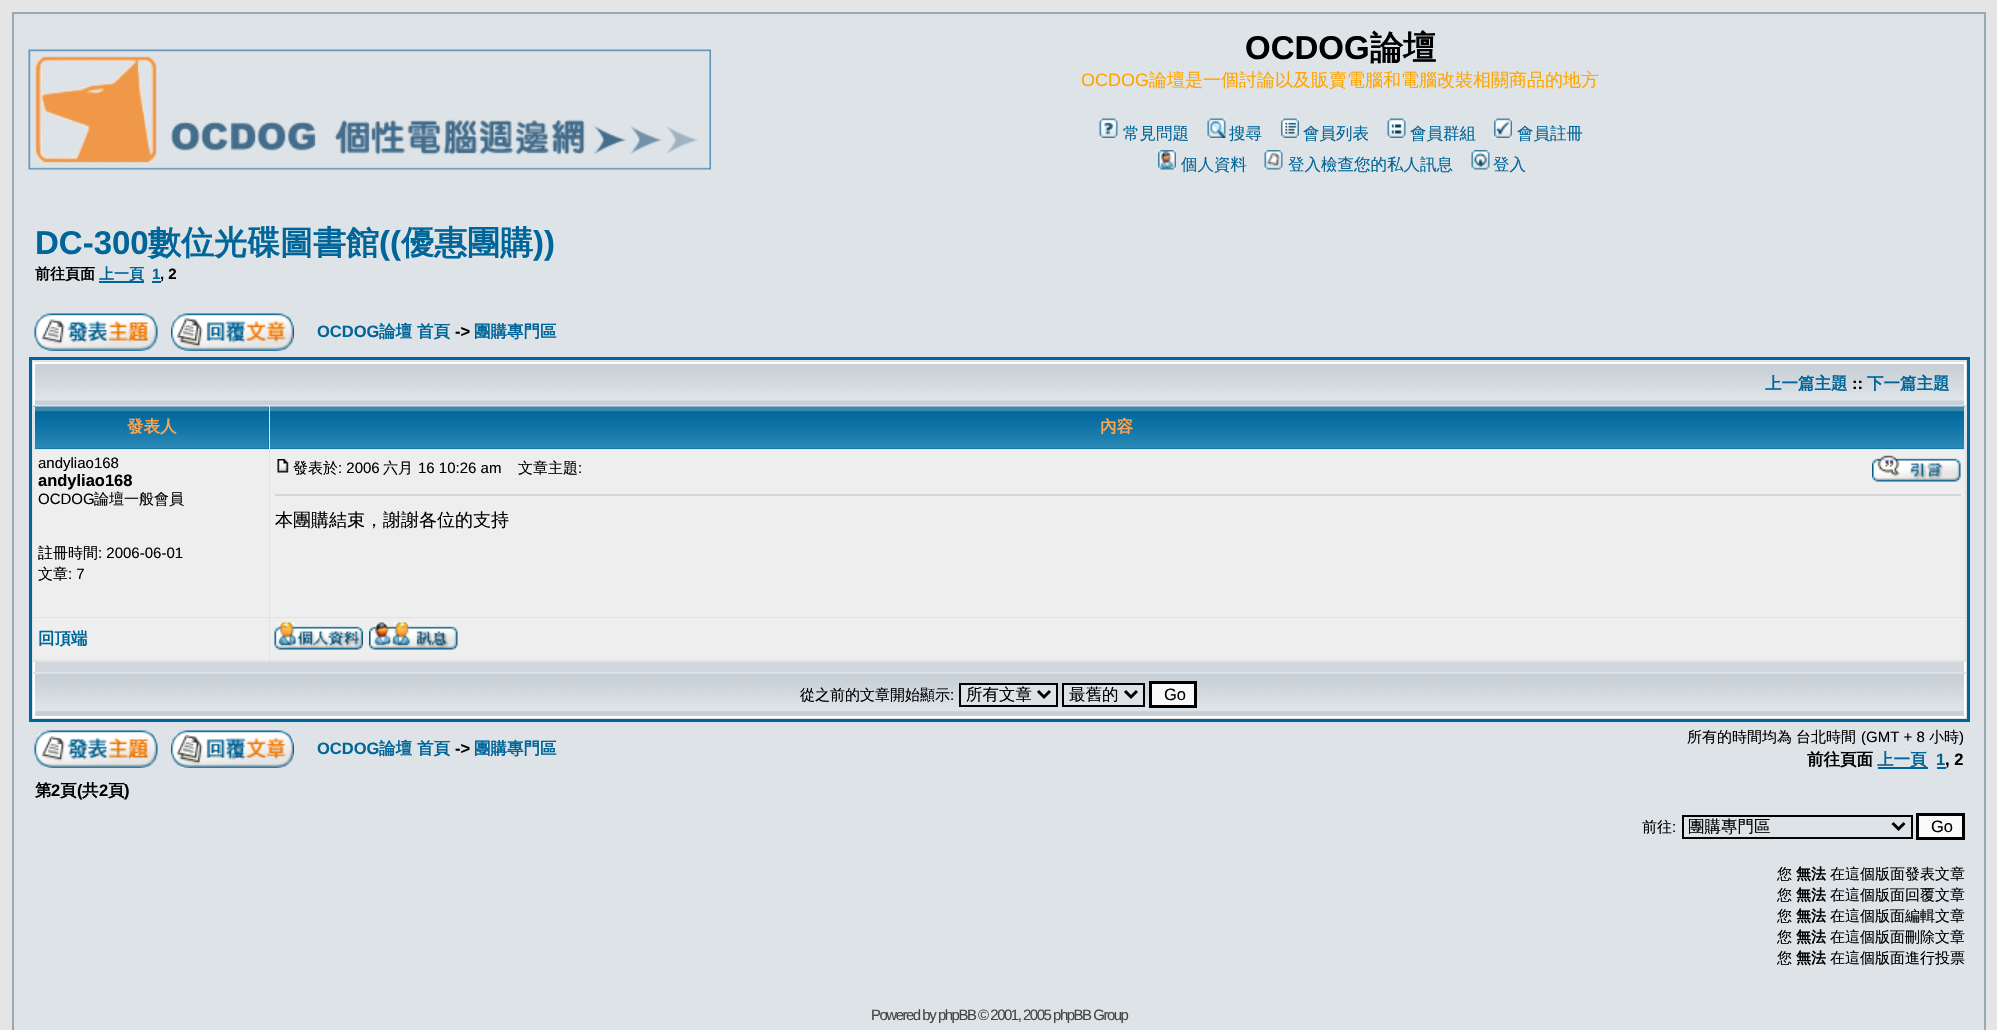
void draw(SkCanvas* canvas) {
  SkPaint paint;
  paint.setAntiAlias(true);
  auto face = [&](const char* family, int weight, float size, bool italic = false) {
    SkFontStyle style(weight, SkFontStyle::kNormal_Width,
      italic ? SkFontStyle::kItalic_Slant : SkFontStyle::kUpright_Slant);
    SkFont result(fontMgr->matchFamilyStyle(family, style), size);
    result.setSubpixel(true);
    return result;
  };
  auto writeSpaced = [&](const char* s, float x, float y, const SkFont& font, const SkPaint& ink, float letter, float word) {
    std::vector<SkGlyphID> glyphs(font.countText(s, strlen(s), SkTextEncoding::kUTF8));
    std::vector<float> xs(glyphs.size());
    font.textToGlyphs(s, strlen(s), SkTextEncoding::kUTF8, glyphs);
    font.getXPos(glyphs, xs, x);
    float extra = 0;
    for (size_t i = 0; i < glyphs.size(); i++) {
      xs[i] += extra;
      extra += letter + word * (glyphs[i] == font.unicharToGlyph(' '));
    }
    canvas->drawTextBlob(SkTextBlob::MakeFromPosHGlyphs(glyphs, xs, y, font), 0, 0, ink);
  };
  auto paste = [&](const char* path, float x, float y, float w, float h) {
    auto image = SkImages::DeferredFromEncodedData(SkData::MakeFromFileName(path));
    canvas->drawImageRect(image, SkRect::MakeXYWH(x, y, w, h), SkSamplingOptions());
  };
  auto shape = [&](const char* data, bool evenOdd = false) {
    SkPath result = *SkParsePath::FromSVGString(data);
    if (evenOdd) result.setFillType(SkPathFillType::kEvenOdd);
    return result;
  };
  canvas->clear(0xffe5e5e5);
  paint.setColor(0xffdee3e7);
  canvas->drawRect(SkRect::MakeXYWH(13, 13, 1972, 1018), paint);
  paint.setStroke(true);
  paint.setStrokeWidth(2);
  paint.setColor(0xff98aab1);
  canvas->drawRect(SkRect::MakeXYWH(13, 13, 1972, 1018), paint);
  paste("img/1.png", 28, 49, 683, 121);
  paste("img/2.png", 1099, 118, 19, 20);
  paste("img/3.png", 1207, 118, 19, 20);
  paste("img/4.png", 1281, 118, 18, 20);
  paste("img/5.png", 1387, 118, 19, 20);
  paste("img/6.png", 1494, 118, 18, 20);
  paste("img/7.png", 1158, 150, 18, 20);
  paste("img/8.png", 1264, 150, 19, 20);
  paste("img/9.png", 1471, 150, 19, 20);
  paint.setStroke(false);
  paint.setColor(0xff006699);
  canvas->drawRect(SkRect::MakeXYWH(99, 281, 45, 2), paint);
  canvas->drawRect(SkRect::MakeXYWH(152, 281, 9, 2), paint);
  paste("img/10.png", 34, 313, 124, 38);
  paste("img/11.png", 171, 313, 123, 38);
  paint.setStroke(true);
  paint.setStrokeWidth(3);
  canvas->drawRect(SkRect::MakeXYWH(30.5f, 358.5f, 1938, 362), paint);
  paste("img/12.png", 35, 364, 1929, 41);
  paint.setStroke(false);
  {
    const struct { float x, y, w, h; SkColor color; } items[] = {
      {33, 362, 1932, 2, 0xffffffff},
      {1964, 362, 2, 43, 0xffffffff},
      {33, 362, 2, 43, 0xffffffff},
      {35, 407, 234, 42, 0xff006699},
    };
    for (auto [x, y, w, h, color] : items) {
      paint.setColor(color);
      canvas->drawRect(SkRect::MakeXYWH(x, y, w, h), paint);
    }
  }
  paste("img/13.png", 33, 406, 236, 43);
  paint.setColor(0xffdee3e7);
  canvas->drawRect(SkRect::MakeXYWH(33, 407, 2, 42), paint);
  paint.setColor(0xff006699);
  canvas->drawRect(SkRect::MakeXYWH(270, 448, 1694, 1), paint);
  paste("img/14.png", 270, 406, 1695, 43);
  {
    const struct { float x, y, w, h; SkColor color; } items[] = {
      {1964, 407, 1, 42, 0xffdee3e7},
      {33, 450, 236, 167, 0xffeeeeee},
      {270, 450, 1695, 167, 0xffeeeeee},
    };
    for (auto [x, y, w, h, color] : items) {
      paint.setColor(color);
      canvas->drawRect(SkRect::MakeXYWH(x, y, w, h), paint);
    }
  }
  paste("img/15.png", 277, 459, 12, 14);
  paste("img/16.png", 1872, 454, 89, 28);
  {
    const struct { float x, y, w, h; SkColor color; } items[] = {
      {275, 494, 1686, 2, 0xffd1d7dc},
      {33, 618, 236, 42, 0xffeeeeee},
      {270, 618, 1695, 42, 0xffeeeeee},
    };
    for (auto [x, y, w, h, color] : items) {
      paint.setColor(color);
      canvas->drawRect(SkRect::MakeXYWH(x, y, w, h), paint);
    }
  }
  paste("img/17.png", 274, 622, 89, 28);
  paste("img/18.png", 369, 622, 89, 28);
  {
    const struct { float x, y, w, h; SkColor color; } items[] = {
      {35, 662, 1929, 10, 0xffd1d7dc},
      {1964, 662, 2, 10, 0xffffffff},
      {33, 662, 2, 10, 0xffffffff},
    };
    for (auto [x, y, w, h, color] : items) {
      paint.setColor(color);
      canvas->drawRect(SkRect::MakeXYWH(x, y, w, h), paint);
    }
  }
  paste("img/19.png", 33, 673, 1932, 43);
  {
    const struct { float x, y, w, h; SkColor color; } items[] = {
      {1964, 674, 2, 43, 0xffffffff},
      {33, 716, 1932, 2, 0xffffffff},
      {33, 674, 2, 43, 0xffffffff},
    };
    for (auto [x, y, w, h, color] : items) {
      paint.setColor(color);
      canvas->drawRect(SkRect::MakeXYWH(x, y, w, h), paint);
    }
  }
  paint.setColor(0xffdee3e7);
  canvas->drawRect(SkRect::MakeXYWH(960, 684, 97, 22), paint);
  paint.setStroke(true);
  paint.setStrokeWidth(2);
  paint.setColor(0xff000000);
  canvas->drawRect(SkRect::MakeXYWH(960, 684, 97, 22), paint);
  paint.setStrokeWidth(3);
  canvas->drawPath(shape("M1038 691L1044 697L1050 691"), paint);
  paint.setStroke(false);
  paint.setColor(0xffdee3e7);
  canvas->drawRect(SkRect::MakeXYWH(1063, 684, 81, 22), paint);
  paint.setStroke(true);
  paint.setStrokeWidth(2);
  paint.setColor(0xff000000);
  canvas->drawRect(SkRect::MakeXYWH(1063, 684, 81, 22), paint);
  paint.setStrokeWidth(3);
  canvas->drawPath(shape("M1125 691L1131 697L1137 691"), paint);
  paint.setStroke(false);
  paint.setColor(0xfffafafa);
  canvas->drawRect(SkRect::MakeXYWH(1150.5f, 682.5f, 45, 24), paint);
  paint.setStroke(true);
  paint.setColor(0xff000000);
  canvas->drawRect(SkRect::MakeXYWH(1150.5f, 682.5f, 45, 24), paint);
  paste("img/10.png", 34, 730, 124, 38);
  paste("img/11.png", 171, 730, 123, 38);
  paint.setStroke(false);
  paint.setColor(0xff006699);
  canvas->drawRect(SkRect::MakeXYWH(1878, 767, 50, 2), paint);
  canvas->drawRect(SkRect::MakeXYWH(1937, 767, 9, 2), paint);
  paint.setStroke(true);
  paint.setStrokeWidth(2);
  paint.setColor(0xff000000);
  canvas->drawRect(SkRect::MakeXYWH(1683, 816, 229, 22), paint);
  paint.setStrokeWidth(3);
  canvas->drawPath(shape("M1892.5 823L1898.5 829L1904.5 823"), paint);
  paint.setStroke(false);
  paint.setColor(0xfffafafa);
  canvas->drawRect(SkRect::MakeXYWH(1917.5f, 814.5f, 46, 24), paint);
  paint.setStroke(true);
  paint.setColor(0xff000000);
  canvas->drawRect(SkRect::MakeXYWH(1917.5f, 814.5f, 46, 24), paint);
  auto f0 = face("Liberation Sans", 700, 33);
  paint.setStroke(false);
  canvas->drawString("OCDOG", 1245, 59, f0, paint);
  auto f1 = face("WenQuanYi Zen Hei", 700, 33);
  canvas->drawString("論壇", 1370, 59, f1, paint);
  auto f2 = face("Liberation Sans", 400, 18);
  paint.setColor(0xffffa500);
  canvas->drawString("OCDOG", 1081, 86, f2, paint);
  auto f3 = face("WenQuanYi Zen Hei", 500, 18);
  canvas->drawString("論壇是一個討論以及販賣電腦和電腦改裝相關商品的地方", 1149, 86, f3, paint);
  auto f4 = face("WenQuanYi Zen Hei", 500, 16.5f);
  paint.setColor(0xff006699);
  {
    const struct { const char* s; float x, y; } items[] = {
      {"常見問題", 1123, 139},
      {"搜尋", 1229, 139},
      {"會員列表", 1303, 139},
      {"會員群組", 1410, 139},
      {"會員註冊", 1517, 139},
      {"個人資料", 1181, 170},
      {"登入檢查您的私人訊息", 1288, 170},
      {"登入", 1493, 170},
    };
    for (auto [s, x, y] : items) {
      canvas->drawString(s, x, y, f4, paint);
    }
  }
  canvas->drawString("DC-300", 35, 254, f0, paint);
  canvas->drawString("數位光碟圖書館", 148, 254, f1, paint);
  canvas->drawString("((", 379, 254, f0, paint);
  canvas->drawString("優惠團購", 401, 254, f1, paint);
  canvas->drawString("))", 533, 254, f0, paint);
  auto f5 = face("WenQuanYi Zen Hei", 700, 15);
  paint.setColor(0xff000000);
  canvas->drawString("前往頁面", 35, 279, f5, paint);
  paint.setColor(0xff006699);
  canvas->drawString("上一頁", 99, 279, f5, paint);
  auto f6 = face("Liberation Sans", 700, 15);
  canvas->drawString("1", 152, 279, f6, paint);
  paint.setColor(0xff000000);
  canvas->drawString(", 2", 160, 279, f6, paint);
  auto f7 = face("Liberation Sans", 700, 16.5f);
  paint.setColor(0xff006699);
  canvas->drawString("OCDOG", 317, 337, f7, paint);
  auto f8 = face("WenQuanYi Zen Hei", 700, 16.5f);
  canvas->drawString("論壇 首頁", 379, 337, f8, paint);
  paint.setColor(0xff000000);
  canvas->drawString("->", 455, 337, f7, paint);
  paint.setColor(0xff006699);
  canvas->drawString("團購專門區", 474, 337, f8, paint);
  canvas->drawString("上一篇主題", 1765, 389, f8, paint);
  paint.setColor(0xff000000);
  canvas->drawString("::", 1852, 389, f7, paint);
  paint.setColor(0xff006699);
  canvas->drawString("下一篇主題", 1867, 389, f8, paint);
  paint.setColor(0xffffa34f);
  canvas->drawString("發表人", 127, 432, f8, paint);
  canvas->drawString("內容", 1100, 432, f8, paint);
  auto f9 = face("Liberation Sans", 400, 15);
  paint.setColor(0xff000000);
  canvas->drawString("andyliao168", 38, 468, f9, paint);
  canvas->drawString("andyliao168", 38, 486, f7, paint);
  canvas->drawString("OCDOG", 38, 504, f9, paint);
  auto f10 = face("WenQuanYi Zen Hei", 500, 15);
  canvas->drawString("論壇一般會員", 94, 504, f10, paint);
  canvas->drawString("註冊時間", 38, 558, f10, paint);
  canvas->drawString(": 2006-06-01", 98, 558, f9, paint);
  canvas->drawString("文章", 38, 579, f10, paint);
  canvas->drawString(": 7", 68, 579, f9, paint);
  canvas->drawString("發表於", 293, 473, f10, paint);
  canvas->drawString(": 2006", 338, 473, f9, paint);
  canvas->drawString("六月", 383, 473, f10, paint);
  canvas->drawString("16 10:26 am", 418, 473, f9, paint);
  canvas->drawString("文章主題", 518, 473, f10, paint);
  canvas->drawString(":", 578, 473, f9, paint);
  canvas->drawString("本團購結束，謝謝各位的支持", 275, 526, f3, paint);
  paint.setColor(0xff006699);
  canvas->drawString("回頂端", 38, 644, f8, paint);
  paint.setColor(0xff000000);
  canvas->drawString("從之前的文章開始顯示", 800, 700, f10, paint);
  canvas->drawString(":", 950, 700, f9, paint);
  canvas->drawString("所有文章", 966, 700, f4, paint);
  canvas->drawString("最舊的", 1069, 700, f4, paint);
  auto f11 = face("Liberation Sans", 400, 16.5f);
  canvas->drawString("Go", 1164, 700, f11, paint);
  paint.setColor(0xff006699);
  canvas->drawString("OCDOG", 317, 754, f7, paint);
  canvas->drawString("論壇 首頁", 379, 754, f8, paint);
  paint.setColor(0xff000000);
  canvas->drawString("->", 455, 754, f7, paint);
  paint.setColor(0xff006699);
  canvas->drawString("團購專門區", 474, 754, f8, paint);
  paint.setColor(0xff000000);
  canvas->drawString("所有的時間均為", 1687, 742, f10, paint);
  canvas->drawString("台北時間", 1796, 742, f10, paint);
  canvas->drawString("(GMT + 8", 1861, 742, f9, paint);
  canvas->drawString("小時", 1929, 742, f10, paint);
  canvas->drawString(")", 1959, 742, f9, paint);
  canvas->drawString("前往頁面", 1807, 765, f8, paint);
  paint.setColor(0xff006699);
  canvas->drawString("上一頁", 1877, 765, f8, paint);
  canvas->drawString("1", 1936, 765, f7, paint);
  paint.setColor(0xff000000);
  canvas->drawString(", 2", 1945, 765, f7, paint);
  canvas->drawString("第", 35, 796, f8, paint);
  canvas->drawString("2", 51, 796, f7, paint);
  canvas->drawString("頁", 60, 796, f8, paint);
  canvas->drawString("(", 77, 796, f7, paint);
  canvas->drawString("共", 82, 796, f8, paint);
  canvas->drawString("2", 99, 796, f7, paint);
  canvas->drawString("頁", 108, 796, f8, paint);
  canvas->drawString(")", 124, 796, f7, paint);
  canvas->drawString("前往", 1642, 832, f10, paint);
  canvas->drawString(":", 1672, 832, f9, paint);
  canvas->drawString("團購專門區", 1688, 832, f4, paint);
  canvas->drawString("Go", 1931, 832, f11, paint);
  canvas->drawString("您", 1777, 879, f10, paint);
  canvas->drawString("無法", 1796, 879, f5, paint);
  canvas->drawString("在這個版面發表文章", 1830, 879, f10, paint);
  canvas->drawString("您", 1777, 900, f10, paint);
  canvas->drawString("無法", 1796, 900, f5, paint);
  canvas->drawString("在這個版面回覆文章", 1830, 900, f10, paint);
  canvas->drawString("您", 1777, 921, f10, paint);
  canvas->drawString("無法", 1796, 921, f5, paint);
  canvas->drawString("在這個版面編輯文章", 1830, 921, f10, paint);
  canvas->drawString("您", 1777, 942, f10, paint);
  canvas->drawString("無法", 1796, 942, f5, paint);
  canvas->drawString("在這個版面刪除文章", 1830, 942, f10, paint);
  canvas->drawString("您", 1777, 963, f10, paint);
  canvas->drawString("無法", 1796, 963, f5, paint);
  canvas->drawString("在這個版面進行投票", 1830, 963, f10, paint);
  paint.setColor(0xff444444);
  writeSpaced("Powered by phpBB © 2001, 2005 phpBB Group", 871, 1020, f9, paint, -1.5f, 0);
}
